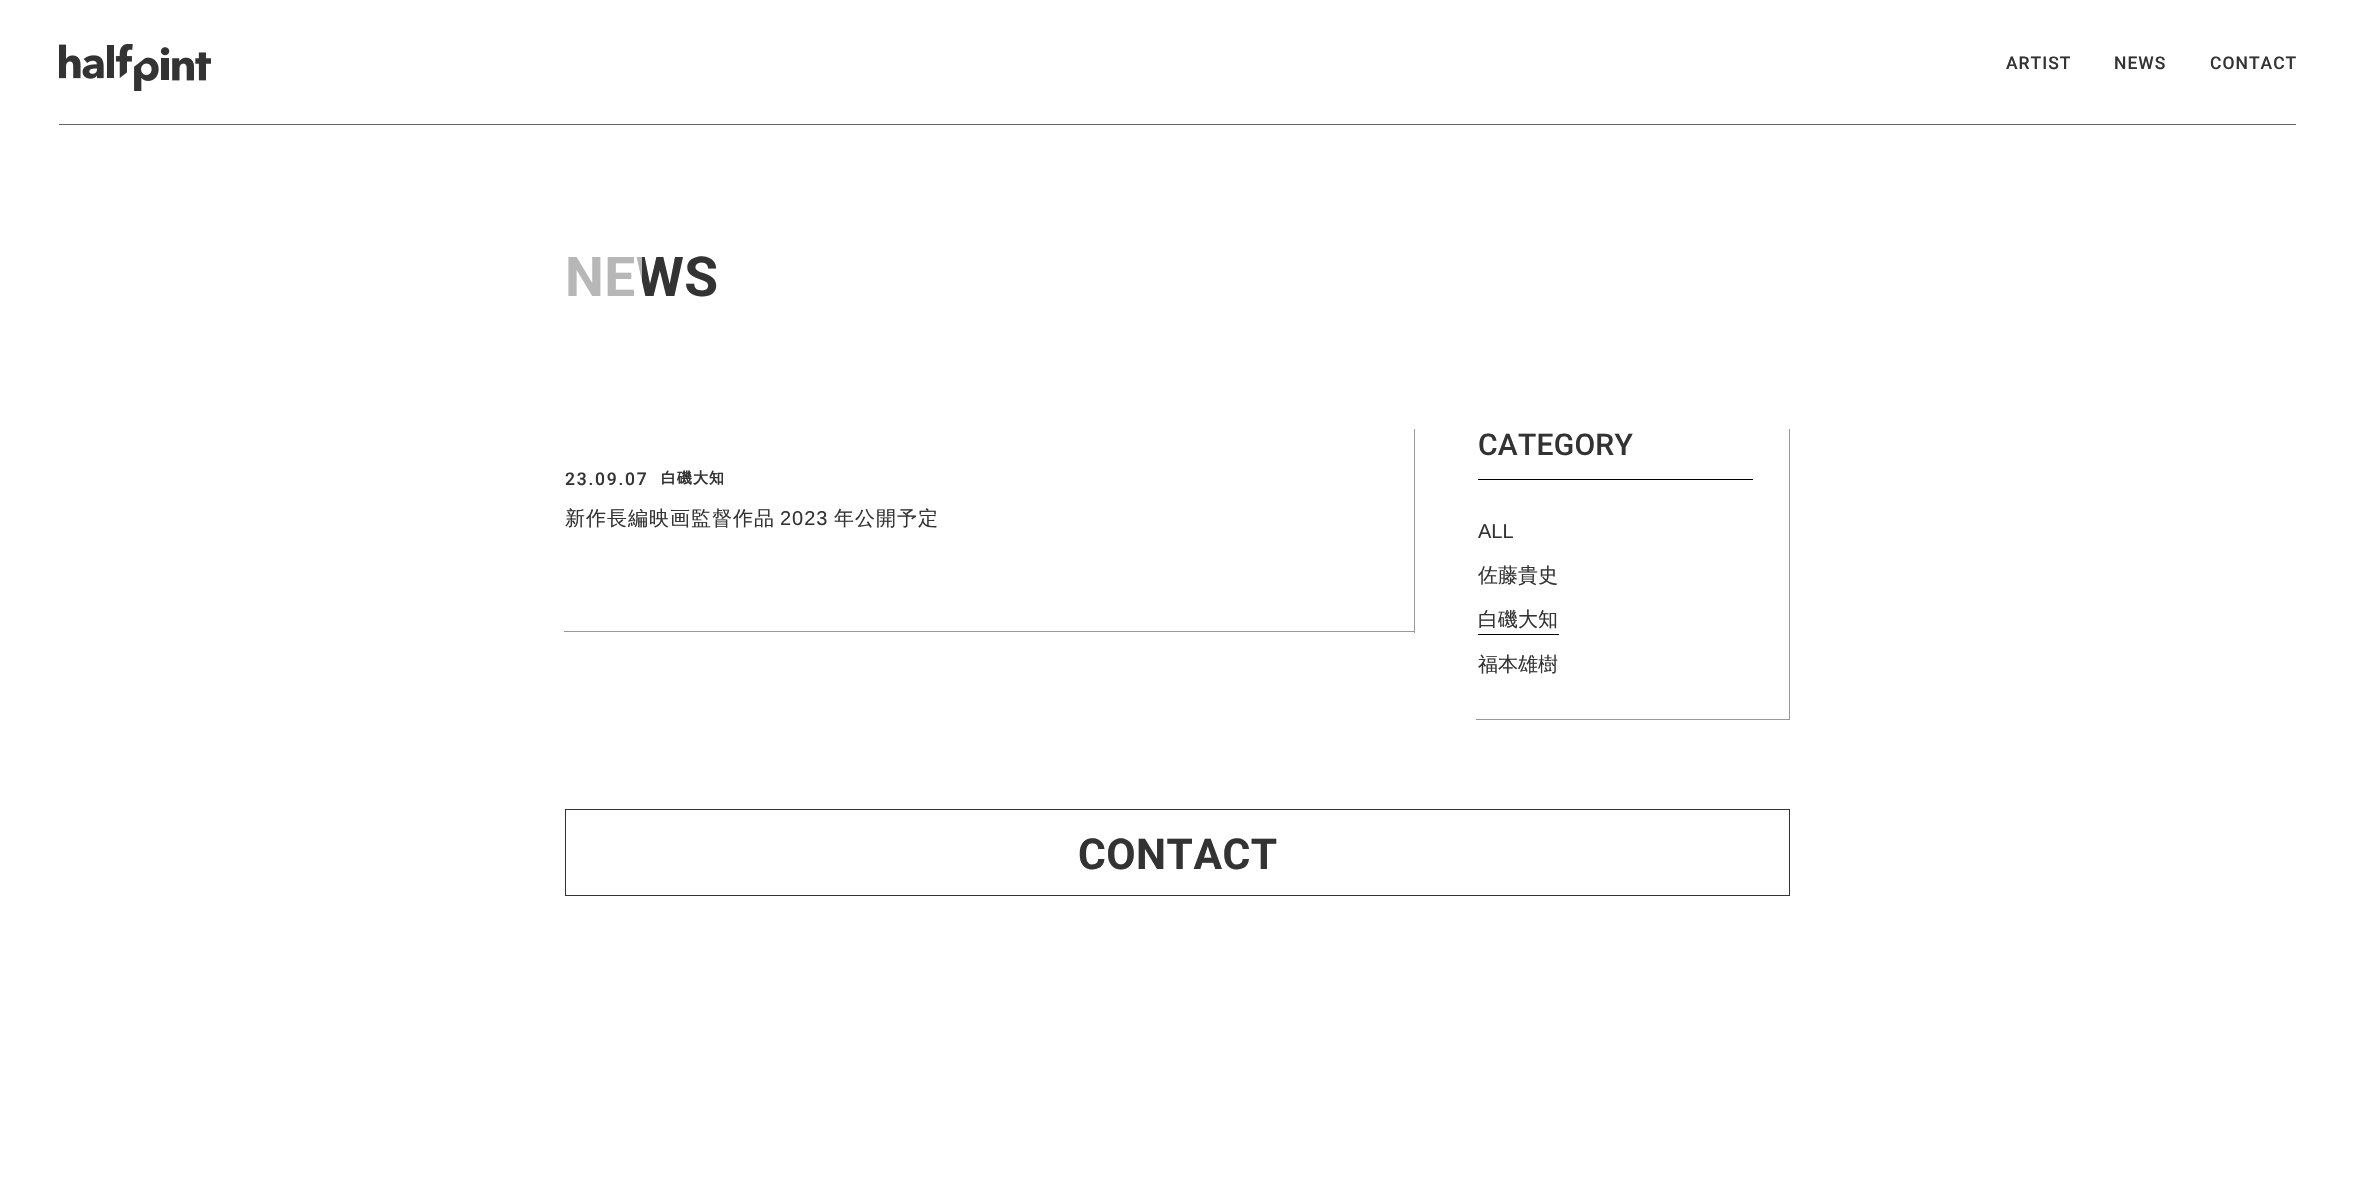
void draw(SkCanvas* canvas) {
  SkPaint paint;
  paint.setAntiAlias(true);
  auto face = [&](const char* family, int weight, float size, bool italic = false) {
    SkFontStyle style(weight, SkFontStyle::kNormal_Width,
      italic ? SkFontStyle::kItalic_Slant : SkFontStyle::kUpright_Slant);
    SkFont result(fontMgr->matchFamilyStyle(family, style), size);
    result.setSubpixel(true);
    return result;
  };
  auto writeSpaced = [&](const char* s, float x, float y, const SkFont& font, const SkPaint& ink, float letter, float word) {
    std::vector<SkGlyphID> glyphs(font.countText(s, strlen(s), SkTextEncoding::kUTF8));
    std::vector<float> xs(glyphs.size());
    font.textToGlyphs(s, strlen(s), SkTextEncoding::kUTF8, glyphs);
    font.getXPos(glyphs, xs, x);
    float extra = 0;
    for (size_t i = 0; i < glyphs.size(); i++) {
      xs[i] += extra;
      extra += letter + word * (glyphs[i] == font.unicharToGlyph(' '));
    }
    canvas->drawTextBlob(SkTextBlob::MakeFromPosHGlyphs(glyphs, xs, y, font), 0, 0, ink);
  };
  auto paste = [&](const char* path, float x, float y, float w, float h) {
    auto image = SkImages::DeferredFromEncodedData(SkData::MakeFromFileName(path));
    canvas->drawImageRect(image, SkRect::MakeXYWH(x, y, w, h), SkSamplingOptions());
  };
  canvas->clear(0xffffffff);
  paint.setColor(0xff666666);
  canvas->drawRect(SkRect::MakeXYWH(59, 124, 2237, 1), paint);
  paste("img/1.png", 59, 44, 152, 47);
  {
    const struct { float x, y, w, h; SkColor color; } items[] = {
      {1414, 429, 1, 204, 0xff999999},
      {564, 631, 850, 1, 0xff999999},
      {1478, 479, 275, 1, 0xff000000},
      {1789, 429, 1, 291, 0xff999999},
      {1478, 634, 81, 1, 0xff000000},
      {1476, 719, 313, 1, 0xff999999},
    };
    for (auto [x, y, w, h, color] : items) {
      paint.setColor(color);
      canvas->drawRect(SkRect::MakeXYWH(x, y, w, h), paint);
    }
  }
  paint.setStroke(true);
  paint.setStrokeWidth(1);
  paint.setColor(0xff333333);
  canvas->drawRect(SkRect::MakeXYWH(565.5f, 809.5f, 1224, 86), paint);
  auto f0 = face("Roboto", 500, 17.5f);
  paint.setStroke(false);
  {
    const struct { const char* s; float x, y; } items[] = {
      {"ARTIST", 2006, 69},
      {"NEWS", 2114, 69},
      {"CONTACT", 2210, 69},
    };
    for (auto [s, x, y] : items) {
      writeSpaced(s, x, y, f0, paint, 1, 0);
    }
  }
  auto f1 = face("Roboto", 700, 55);
  {
    const SkColor colors[] = {0xffb7b7b7, 0xff333333};
    const float stops[] = {0.5f, 0.5f};
    const SkPoint ends[] = {{565, 278}, {719, 278}};
    paint.setShader(SkGradientShader::MakeLinear(ends, colors, stops, 2, SkTileMode::kClamp));
    paint.setAlpha(255);
  }
  writeSpaced("NEWS", 565, 296, f1, paint, 0.5f, 0);
  paint.setShader(nullptr);
  paint.setColor(0xff333333);
  writeSpaced("23.09.07", 565, 485, f0, paint, 1.75f, 0);
  auto f2 = face("WenQuanYi Zen Hei", 700, 15);
  writeSpaced("白磯大知", 661, 483, f2, paint, 1, 0);
  auto f3 = face("WenQuanYi Zen Hei", 500, 20);
  writeSpaced("新作⻑編映画監督作品", 565, 525, f3, paint, 1, 0);
  auto f4 = face("Liberation Sans", 400, 20);
  writeSpaced("2023", 780, 525, f4, paint, 1, 0);
  writeSpaced("年公開予定", 834, 525, f3, paint, 1, 0);
  auto f5 = face("Roboto", 500, 30);
  writeSpaced("CATEGORY", 1478, 455, f5, paint, 0.25f, 0);
  canvas->drawString("ALL", 1478, 538, f4, paint);
  {
    const struct { const char* s; float x, y; } items[] = {
      {"佐藤貴史", 1478, 582},
      {"白磯大知", 1478, 626},
      {"福本雄樹", 1478, 671},
    };
    for (auto [s, x, y] : items) {
      canvas->drawString(s, x, y, f3, paint);
    }
  }
  auto f6 = face("Roboto", 700, 42.5f);
  writeSpaced("CONTACT", 1078, 869, f6, paint, 0.5f, 0);
}
